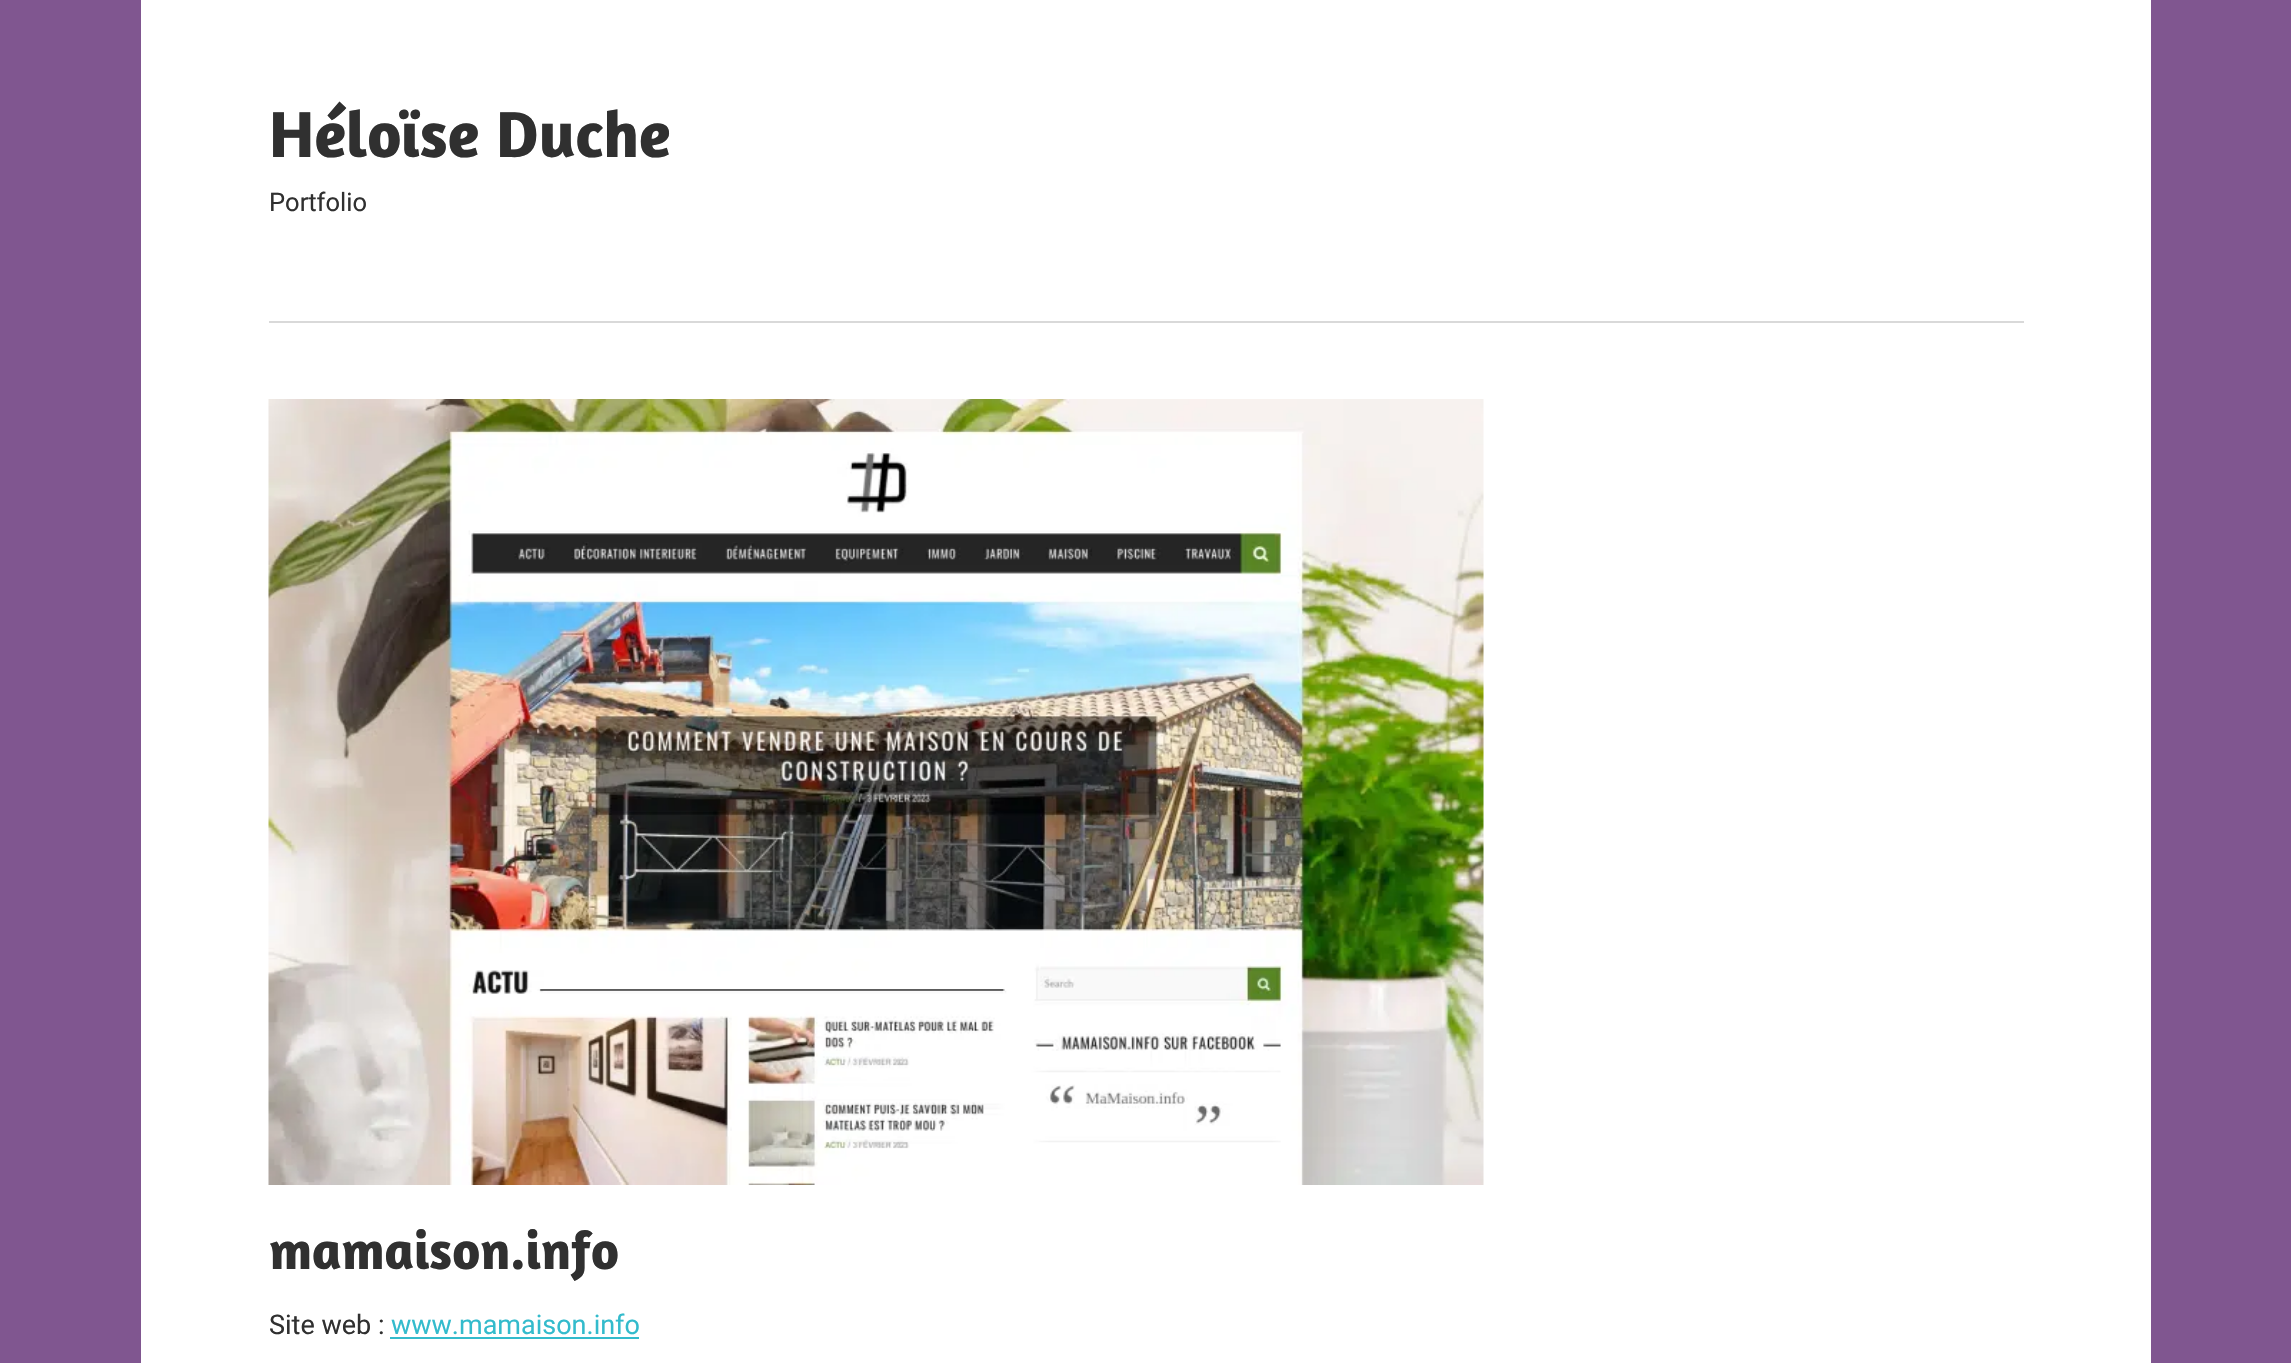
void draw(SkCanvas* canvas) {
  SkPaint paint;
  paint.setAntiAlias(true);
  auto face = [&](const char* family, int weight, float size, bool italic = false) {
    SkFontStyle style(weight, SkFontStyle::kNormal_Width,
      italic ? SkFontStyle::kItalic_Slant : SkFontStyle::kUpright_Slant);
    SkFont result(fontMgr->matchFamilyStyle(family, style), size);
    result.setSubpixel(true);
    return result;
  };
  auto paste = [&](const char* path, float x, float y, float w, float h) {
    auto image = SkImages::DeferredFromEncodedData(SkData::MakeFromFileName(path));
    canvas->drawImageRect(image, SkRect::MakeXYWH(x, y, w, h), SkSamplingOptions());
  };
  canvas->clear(0xff805690);
  paint.setColor(0xffffffff);
  canvas->drawRect(SkRect::MakeXYWH(141, 0, 2010, 1363), paint);
  paint.setColor(0xffd9d9d9);
  canvas->drawRect(SkRect::MakeXYWH(269, 321, 1755, 2), paint);
  paste("img/1.png", 268, 399, 1216, 786);
  paint.setColor(0xff33bbcc);
  canvas->drawRect(SkRect::MakeXYWH(390, 1337, 249, 2), paint);
  auto f0 = face("Amaranth", 700, 66);
  paint.setColor(0xff303030);
  canvas->drawString("Héloïse Duche", 269, 157, f0, paint);
  auto f1 = face("Roboto", 400, 25.5f);
  canvas->drawString("Portfolio", 269, 211, f1, paint);
  auto f2 = face("Amaranth", 700, 54);
  canvas->drawString("mamaison.info", 269, 1269, f2, paint);
  auto f3 = face("Roboto", 400, 27);
  canvas->drawString("Site web :", 269, 1334, f3, paint);
  paint.setColor(0xff33bbcc);
  canvas->drawString("www.mamaison.info", 391, 1334, f3, paint);
}
